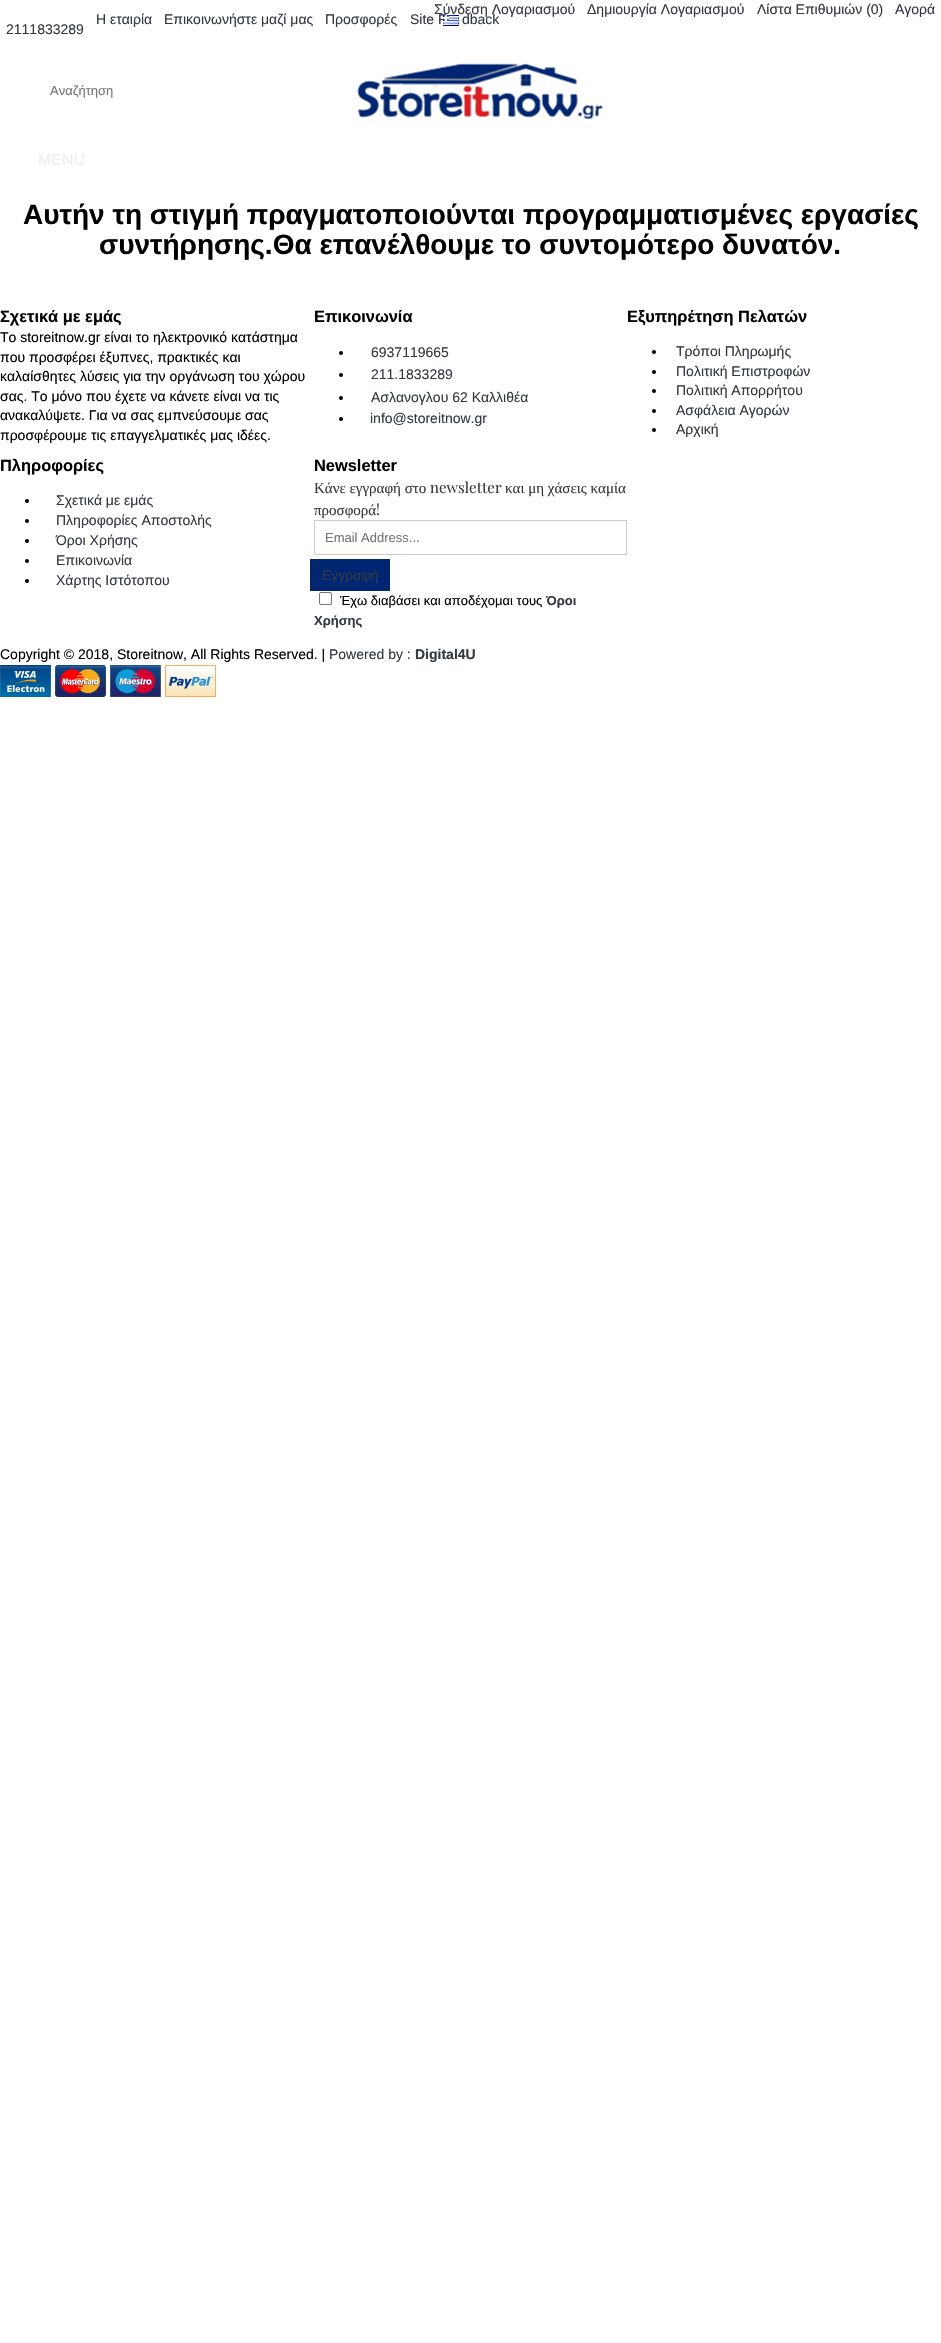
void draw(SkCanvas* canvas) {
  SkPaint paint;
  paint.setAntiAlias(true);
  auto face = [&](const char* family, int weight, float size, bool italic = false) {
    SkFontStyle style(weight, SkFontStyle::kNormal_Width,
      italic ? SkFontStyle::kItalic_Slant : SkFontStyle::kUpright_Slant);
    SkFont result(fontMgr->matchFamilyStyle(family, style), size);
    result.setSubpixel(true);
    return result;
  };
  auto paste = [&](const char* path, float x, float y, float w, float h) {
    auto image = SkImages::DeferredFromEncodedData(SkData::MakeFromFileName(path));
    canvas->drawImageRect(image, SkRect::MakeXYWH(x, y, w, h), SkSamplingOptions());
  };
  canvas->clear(0xffffffff);
  paste("img/2.png", 357, 63, 246, 57);
  paint.setColor(0xff000000);
  canvas->drawCircle(341, 353, 2, paint);
  canvas->drawCircle(341, 375, 2, paint);
  canvas->drawCircle(341, 398, 2, paint);
  canvas->drawCircle(341, 419, 2, paint);
  canvas->drawCircle(654, 352, 2, paint);
  canvas->drawCircle(654, 372, 2, paint);
  canvas->drawCircle(654, 391, 2, paint);
  canvas->drawCircle(654, 411, 2, paint);
  canvas->drawCircle(654, 430, 2, paint);
  canvas->drawCircle(27, 501, 2, paint);
  canvas->drawCircle(27, 521, 2, paint);
  canvas->drawCircle(27, 541, 2, paint);
  canvas->drawCircle(27, 561, 2, paint);
  canvas->drawCircle(27, 581, 2, paint);
  paint.setStroke(true);
  paint.setStrokeWidth(1);
  paint.setColor(0xffcccccc);
  canvas->drawRect(SkRect::MakeXYWH(314.5f, 520.5f, 312, 34), paint);
  paint.setStroke(false);
  paint.setColor(0xff002672);
  canvas->drawRect(SkRect::MakeXYWH(310, 559, 80, 32), paint);
  paint.setStroke(true);
  paint.setColor(0xff767676);
  canvas->drawRoundRect(SkRect::MakeXYWH(319.5f, 592.5f, 12, 12), 1.5f, 1.5f, paint);
  paste("img/3.png", 0, 665, 51, 32);
  paste("img/4.png", 55, 665, 51, 32);
  paste("img/5.png", 110, 665, 51, 32);
  paste("img/6.png", 165, 665, 51, 32);
  auto f0 = face("Liberation Sans", 400, 14);
  paint.setStroke(false);
  paint.setColor(0xff333745);
  {
    const struct { const char* s; float x, y; } items[] = {
      {"Σύνδεση Λογαριασμού", 434, 14},
      {"Δημιουργία Λογαριασμού", 587, 14},
      {"Λίστα Επιθυμιών (0)", 757, 14},
      {"Αγορά", 895, 14},
      {"Η εταιρία", 96, 24},
      {"Επικοινωνήστε μαζί μας", 164, 24},
      {"Προσφορές", 325, 24},
      {"Site F", 410, 24},
      {"dback", 462, 24},
      {"2111833289", 6, 34},
    };
    for (auto [s, x, y] : items) {
      canvas->drawString(s, x, y, f0, paint);
    }
  }
  paste("img/1.png", 443, 15, 16, 11);
  auto f1 = face("Liberation Sans", 400, 13);
  paint.setColor(0xff757575);
  canvas->drawString("Αναζήτηση", 50, 95, f1, paint);
  auto f2 = face("Liberation Sans", 400, 16);
  paint.setColor(0xffeeeeee);
  canvas->drawString("MENU", 38, 165, f2, paint);
  auto f3 = face("Liberation Sans", 700, 28);
  paint.setColor(0xff000000);
  canvas->drawString("Αυτήν τη στιγμή πραγματοποιούνται προγραμματισμένες εργασίες", 23, 224, f3, paint);
  canvas->drawString("συντήρησης.Θα επανέλθουμε το συντομότερο δυνατόν.", 99, 254, f3, paint);
  auto f4 = face("Liberation Sans", 700, 16.4f);
  canvas->drawString("Σχετικά με εμάς", 0, 322, f4, paint);
  {
    const struct { const char* s; float x, y; } items[] = {
      {"Το storeitnow.gr είναι το ηλεκτρονικό κατάστημα", 0, 342},
      {"που προσφέρει έξυπνες, πρακτικές και", 0, 362},
      {"καλαίσθητες λύσεις για την οργάνωση του χώρου", 0, 381},
      {"σας. Το μόνο που έχετε να κάνετε είναι να τις", 0, 401},
      {"ανακαλύψετε. Για να σας εμπνεύσουμε σας", 0, 420},
      {"προσφέρουμε τις επαγγελματικές μας ιδέες.", 0, 440},
    };
    for (auto [s, x, y] : items) {
      canvas->drawString(s, x, y, f0, paint);
    }
  }
  canvas->drawString("Επικοινωνία", 314, 322, f4, paint);
  paint.setColor(0xff333745);
  {
    const struct { const char* s; float x, y; } items[] = {
      {"6937119665", 371, 357},
      {"211.1833289", 371, 379},
      {"Ασλανογλου 62 Καλλιθέα", 371, 402},
      {"info@storeitnow.gr", 370, 423},
    };
    for (auto [s, x, y] : items) {
      canvas->drawString(s, x, y, f0, paint);
    }
  }
  paint.setColor(0xff000000);
  canvas->drawString("Εξυπηρέτηση Πελατών", 627, 322, f4, paint);
  paint.setColor(0xff333745);
  {
    const struct { const char* s; float x, y; } items[] = {
      {"Τρόποι Πληρωμής", 676, 356},
      {"Πολιτική Επιστροφών", 676, 376},
      {"Πολιτική Απορρήτου", 676, 395},
      {"Ασφάλεια Αγορών", 676, 415},
      {"Αρχική", 676, 434},
    };
    for (auto [s, x, y] : items) {
      canvas->drawString(s, x, y, f0, paint);
    }
  }
  paint.setColor(0xff000000);
  canvas->drawString("Πληροφορίες", 0, 471, f4, paint);
  paint.setColor(0xff333745);
  {
    const struct { const char* s; float x, y; } items[] = {
      {"Σχετικά με εμάς", 56, 505},
      {"Πληροφορίες Αποστολής", 56, 525},
      {"Όροι Χρήσης", 56, 545},
      {"Επικοινωνία", 56, 565},
      {"Χάρτης Ιστότοπου", 56, 585},
    };
    for (auto [s, x, y] : items) {
      canvas->drawString(s, x, y, f0, paint);
    }
  }
  paint.setColor(0xff000000);
  canvas->drawString("Newsletter", 314, 471, f4, paint);
  auto f5 = face("Liberation Serif", 400, 15);
  paint.setColor(0xff383838);
  canvas->drawString("Κάνε εγγραφή στο", 314, 493, f5, paint);
  auto f6 = face("Playfair Display", 400, 15);
  canvas->drawString("newsletter", 430, 493, f6, paint);
  canvas->drawString("και μη χάσεις καμία", 505, 493, f5, paint);
  canvas->drawString("προσφορά", 314, 515, f5, paint);
  canvas->drawString("!", 376, 515, f6, paint);
  paint.setColor(0xff757575);
  canvas->drawString("Email Address...", 325, 542, f1, paint);
  paint.setColor(0xff333745);
  canvas->drawString("Εγγραφή", 322, 580, f0, paint);
  paint.setColor(0xff000000);
  canvas->drawString("Έχω διαβάσει και αποδέχομαι τους", 340, 605, f1, paint);
  auto f7 = face("Liberation Sans", 700, 13);
  paint.setColor(0xff333745);
  canvas->drawString("Όροι", 546, 605, f7, paint);
  canvas->drawString("Χρήσης", 314, 625, f7, paint);
  paint.setColor(0xff000000);
  canvas->drawString("Copyright © 2018, Storeitnow, All Rights Reserved. |", 0, 659, f0, paint);
  paint.setColor(0xff333745);
  canvas->drawString("Powered by :", 329, 659, f0, paint);
  auto f8 = face("Liberation Sans", 700, 14);
  canvas->drawString("Digital4U", 415, 659, f8, paint);
}
